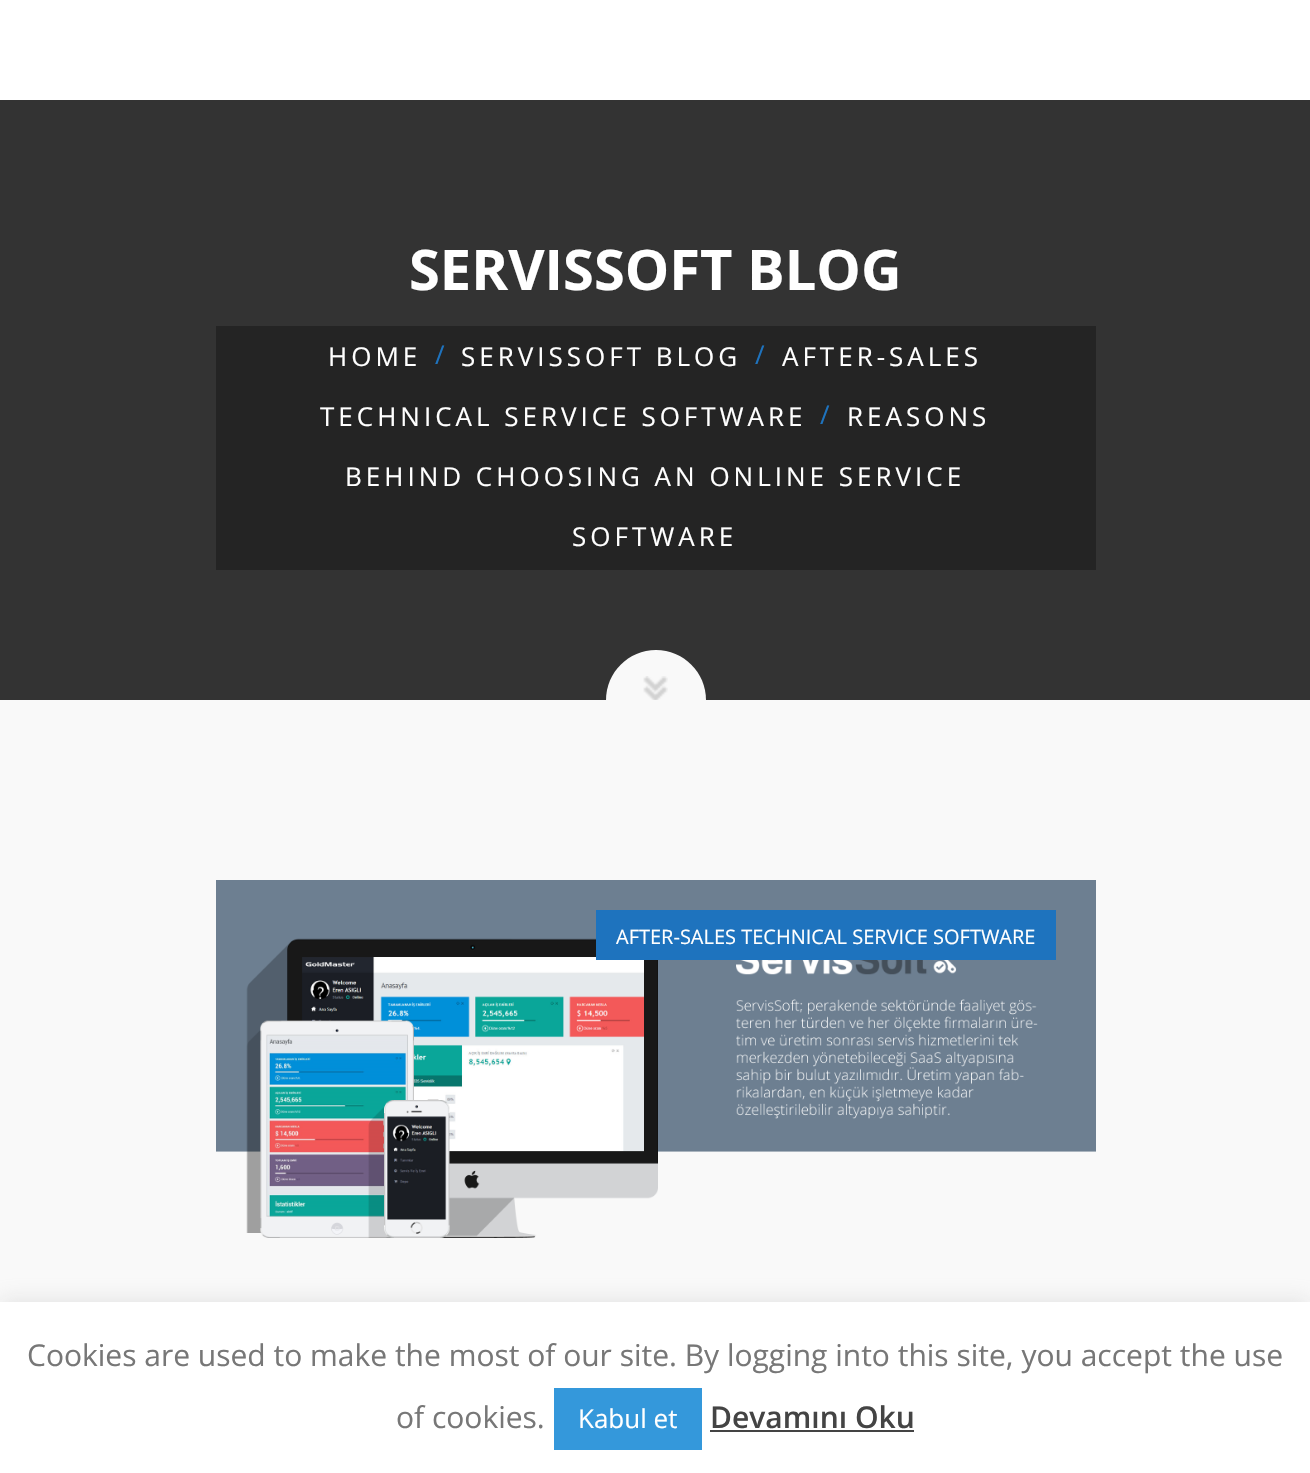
void draw(SkCanvas* canvas) {
  SkPaint paint;
  paint.setAntiAlias(true);
  auto face = [&](const char* family, int weight, float size, bool italic = false) {
    SkFontStyle style(weight, SkFontStyle::kNormal_Width,
      italic ? SkFontStyle::kItalic_Slant : SkFontStyle::kUpright_Slant);
    SkFont result(fontMgr->matchFamilyStyle(family, style), size);
    result.setSubpixel(true);
    return result;
  };
  auto writeSpaced = [&](const char* s, float x, float y, const SkFont& font, const SkPaint& ink, float letter, float word) {
    std::vector<SkGlyphID> glyphs(font.countText(s, strlen(s), SkTextEncoding::kUTF8));
    std::vector<float> xs(glyphs.size());
    font.textToGlyphs(s, strlen(s), SkTextEncoding::kUTF8, glyphs);
    font.getXPos(glyphs, xs, x);
    float extra = 0;
    for (size_t i = 0; i < glyphs.size(); i++) {
      xs[i] += extra;
      extra += letter + word * (glyphs[i] == font.unicharToGlyph(' '));
    }
    canvas->drawTextBlob(SkTextBlob::MakeFromPosHGlyphs(glyphs, xs, y, font), 0, 0, ink);
  };
  auto paste = [&](const char* path, float x, float y, float w, float h) {
    auto image = SkImages::DeferredFromEncodedData(SkData::MakeFromFileName(path));
    canvas->drawImageRect(image, SkRect::MakeXYWH(x, y, w, h), SkSamplingOptions());
  };
  auto shape = [&](const char* data, bool evenOdd = false) {
    SkPath result = *SkParsePath::FromSVGString(data);
    if (evenOdd) result.setFillType(SkPathFillType::kEvenOdd);
    return result;
  };
  canvas->clear(0xffffffff);
  paint.setColor(0xff333333);
  canvas->drawRect(SkRect::MakeXYWH(0, 100, 1310, 600), paint);
  paint.setColor(0xff242424);
  canvas->drawRect(SkRect::MakeXYWH(216, 326, 880, 244), paint);
  paint.setColor(0xfff9f9f9);
  canvas->drawPath(shape("M656 650C683.5 650 706 672.5 706 700H606C606 672.5 628.5 650 656 650Z"), paint);
  paste("img/1.png", 643, 676, 25, 24);
  canvas->drawRect(SkRect::MakeXYWH(0, 700, 1310, 602), paint);
  paste("img/2.png", 216, 880, 880, 358);
  paint.setColor(0xff1e73be);
  canvas->drawRect(SkRect::MakeXYWH(596, 910, 460, 50), paint);
  paint.setColor(0x4dacabab);
  paint.setMaskFilter(SkMaskFilter::MakeBlur(kNormal_SkBlurStyle, 10));
  canvas->drawRect(SkRect::MakeXYWH(0, 1300, 1310, 172), paint);
  paint.setMaskFilter(nullptr);
  {
    const struct { float x, y, w, h; SkColor color; } items[] = {
      {0, 1302, 1310, 171, 0xffffffff},
      {554, 1388, 148, 62, 0xff3498db},
      {710, 1430, 204, 2, 0xff444444},
    };
    for (auto [x, y, w, h, color] : items) {
      paint.setColor(color);
      canvas->drawRect(SkRect::MakeXYWH(x, y, w, h), paint);
    }
  }
  auto f0 = face("Open Sans", 700, 56);
  paint.setColor(0xffffffff);
  canvas->drawString("SERVISSOFT BLOG", 409, 290, f0, paint);
  auto f1 = face("Open Sans", 400, 26);
  paint.setColor(0xff1e73be);
  writeSpaced("/", 755, 364, f1, paint, 4, 0);
  paint.setColor(0xffffffff);
  {
    const struct { const char* s; float x, y; } items[] = {
      {"AFTER-SALES", 782, 366},
      {"TECHNICAL SERVICE SOFTWARE", 320, 426},
      {"HOME", 328, 366},
    };
    for (auto [s, x, y] : items) {
      writeSpaced(s, x, y, f1, paint, 4, 0);
    }
  }
  paint.setColor(0xff1e73be);
  writeSpaced("/", 435, 364, f1, paint, 4, 0);
  paint.setColor(0xffffffff);
  writeSpaced("SERVISSOFT BLOG", 461, 366, f1, paint, 4, 0);
  paint.setColor(0xff1e73be);
  writeSpaced("/", 820, 424, f1, paint, 4, 0);
  paint.setColor(0xffffffff);
  {
    const struct { const char* s; float x, y; } items[] = {
      {"REASONS", 847, 426},
      {"BEHIND CHOOSING AN ONLINE SERVICE", 345, 486},
      {"SOFTWARE", 572, 546},
    };
    for (auto [s, x, y] : items) {
      writeSpaced(s, x, y, f1, paint, 4, 0);
    }
  }
  auto f2 = face("Open Sans", 400, 20);
  canvas->drawString("AFTER-SALES TECHNICAL SERVICE SOFTWARE", 616, 944, f2, paint);
  auto f3 = face("Open Sans", 400, 30);
  paint.setColor(0xff777777);
  canvas->drawString("Cookies are used to make the most of our site. By logging into this site, you accept the use", 27, 1366, f3, paint);
  canvas->drawString("of cookies.", 396, 1428, f3, paint);
  paint.setColor(0xffffffff);
  canvas->drawString("Kabul et", 578, 1428, f1, paint);
  auto f4 = face("Open Sans", 600, 30);
  paint.setColor(0xff444444);
  canvas->drawString("Devamını Oku", 710, 1428, f4, paint);
}
